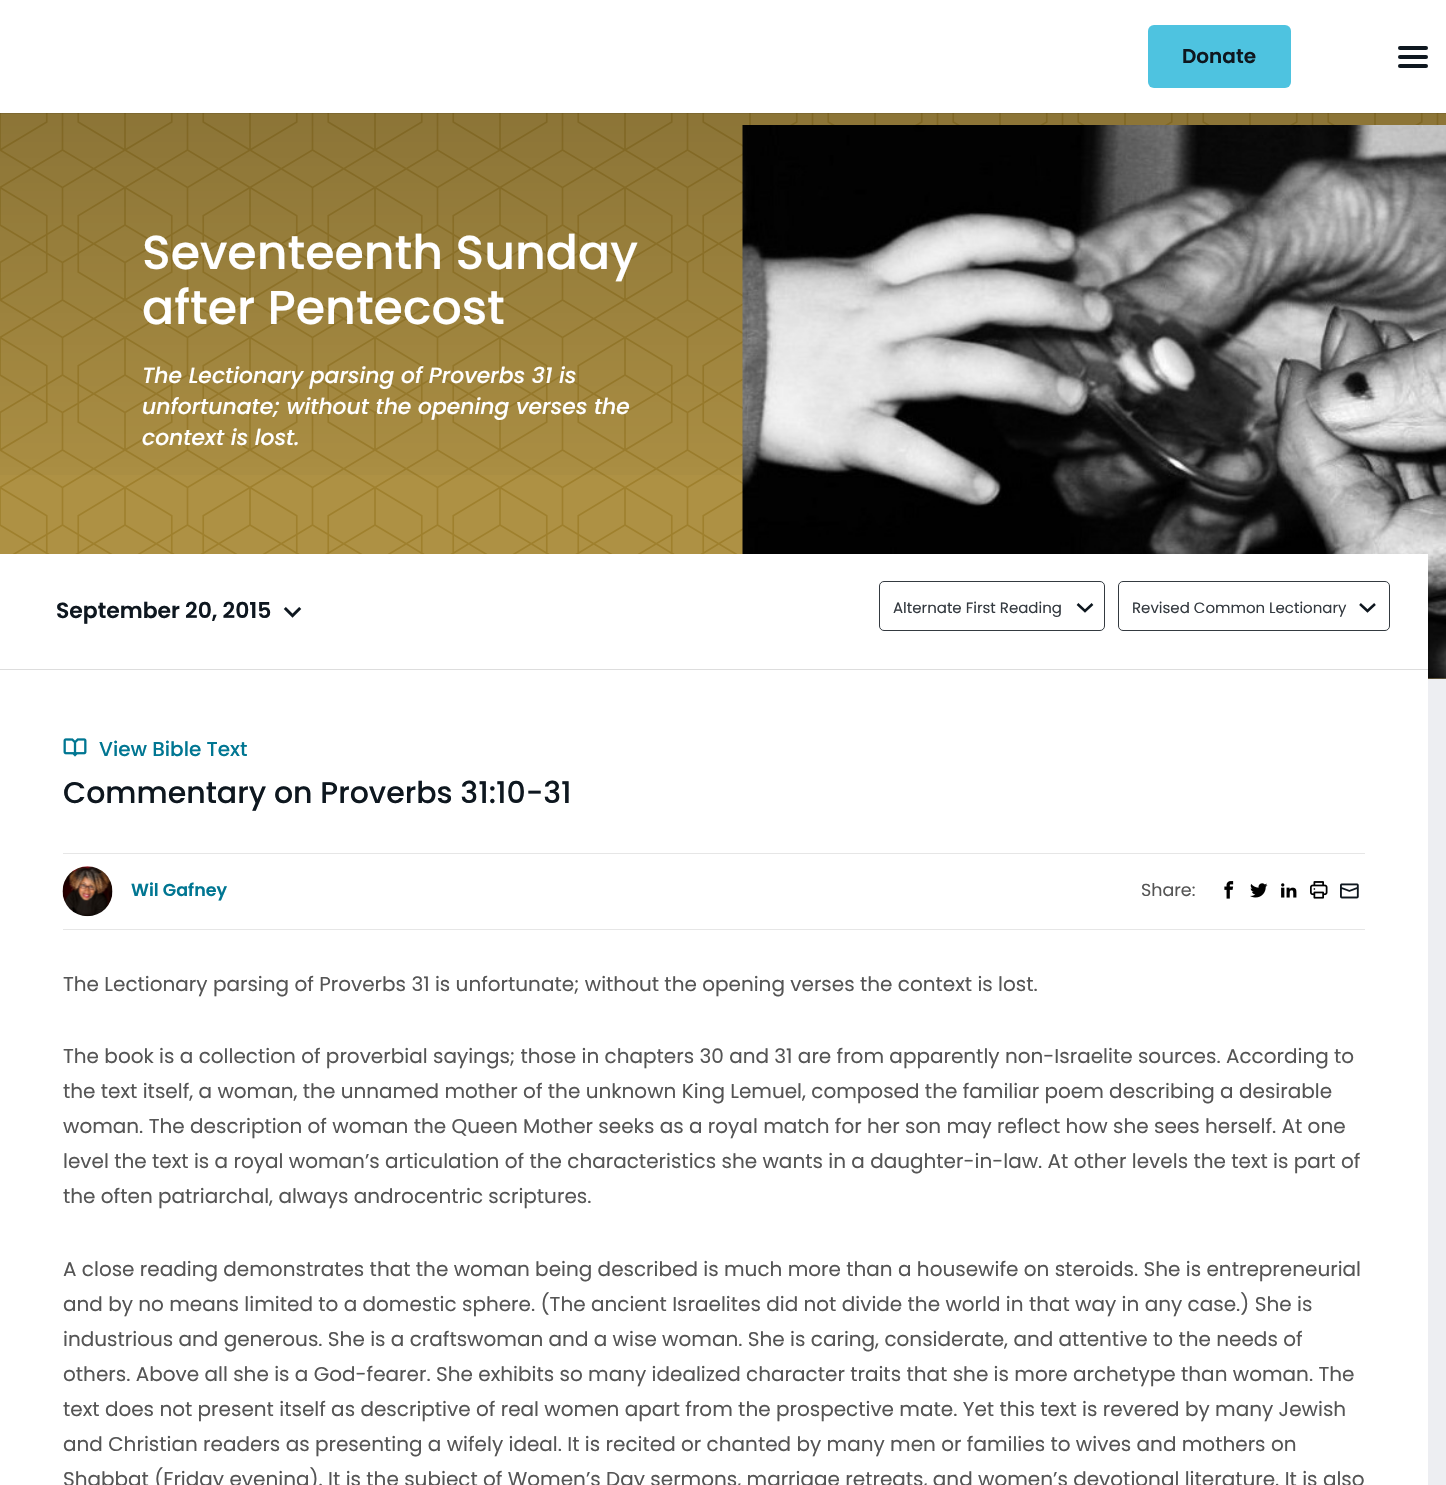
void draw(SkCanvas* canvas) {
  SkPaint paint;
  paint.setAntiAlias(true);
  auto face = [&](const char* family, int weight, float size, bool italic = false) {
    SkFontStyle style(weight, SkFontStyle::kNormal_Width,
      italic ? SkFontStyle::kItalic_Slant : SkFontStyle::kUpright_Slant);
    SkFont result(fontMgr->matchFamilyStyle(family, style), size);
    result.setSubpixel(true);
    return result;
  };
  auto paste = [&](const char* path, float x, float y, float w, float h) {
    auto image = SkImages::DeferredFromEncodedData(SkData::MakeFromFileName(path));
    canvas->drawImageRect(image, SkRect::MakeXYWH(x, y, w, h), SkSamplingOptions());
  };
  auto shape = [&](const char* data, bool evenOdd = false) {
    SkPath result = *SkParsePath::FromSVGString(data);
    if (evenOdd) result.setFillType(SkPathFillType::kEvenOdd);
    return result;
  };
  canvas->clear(0xffedeef2);
  paste("img/1.png", 0, 113, 1446, 566);
  {
    const SkColor colors[] = {0x40000000, 0x00000000};
    const float stops[] = {0, 0.35f};
    const SkPoint ends[] = {{723, 0}, {723, 1485}};
    paint.setShader(SkGradientShader::MakeLinear(ends, colors, stops, 2, SkTileMode::kClamp));
    paint.setAlpha(255);
  }
  canvas->drawRect(SkRect::MakeXYWH(0, 113, 1446, 362), paint);
  paint.setShader(nullptr);
  paint.setColor(0x1a000000);
  canvas->drawRect(SkRect::MakeXYWH(0, 113, 1446, 1), paint);
  paint.setColor(0xffffffff);
  canvas->drawRect(SkRect::MakeXYWH(0, 0, 1446, 113), paint);
  paint.setColor(0xff4ec3e0);
  canvas->drawRoundRect(SkRect::MakeXYWH(1148, 25, 143, 63), 6, 6, paint);
  paint.setColor(0xff0e171f);
  canvas->drawRoundRect(SkRect::MakeXYWH(1398, 46, 30, 4), 2, 2, paint);
  canvas->drawRoundRect(SkRect::MakeXYWH(1398, 55, 30, 4), 2, 2, paint);
  canvas->drawRoundRect(SkRect::MakeXYWH(1398, 64, 30, 4), 2, 2, paint);
  paste("img/2.png", 742, 125, 704, 554);
  paint.setColor(0xffffffff);
  canvas->drawRect(SkRect::MakeXYWH(0, 554, 1428, 115), paint);
  paste("img/3.png", 283, 607, 19, 11);
  paint.setStroke(true);
  paint.setStrokeWidth(2.5f);
  paint.setColor(0xff0e171f);
  canvas->drawPath(shape("M1077.5 604L1085 611L1092.5 604"), paint);
  paint.setStrokeWidth(1);
  paint.setColor(0xff343a40);
  canvas->drawRoundRect(SkRect::MakeXYWH(879.5f, 581.5f, 225, 49), 4.5f, 4.5f, paint);
  paint.setStrokeWidth(2.5f);
  paint.setColor(0xff0e171f);
  canvas->drawPath(shape("M1360 604L1367.5 611L1375 604"), paint);
  paint.setStrokeWidth(1);
  paint.setColor(0xff343a40);
  canvas->drawRoundRect(SkRect::MakeXYWH(1118.5f, 581.5f, 271, 49), 4.5f, 4.5f, paint);
  paint.setStroke(false);
  paint.setColor(0xffdddddd);
  canvas->drawRect(SkRect::MakeXYWH(0, 669, 1428, 1), paint);
  paint.setColor(0xffffffff);
  canvas->drawRect(SkRect::MakeXYWH(0, 670, 1428, 815), paint);
  paste("img/4.png", 63, 738, 24, 19);
  paint.setColor(0xffe6e6e6);
  canvas->drawRect(SkRect::MakeXYWH(63, 853, 1302, 1), paint);
  paste("img/5.png", 62, 866, 51, 51);
  paste("img/6.png", 1224, 881, 10, 18);
  paste("img/7.png", 1250, 883, 18, 15);
  paste("img/8.png", 1281, 883, 16, 15);
  paste("img/9.png", 1310, 881, 18, 18);
  paste("img/10.png", 1340, 883, 19, 16);
  canvas->drawRect(SkRect::MakeXYWH(63, 929, 1302, 1), paint);
  auto f0 = face("Poppins", 600, 20);
  paint.setColor(0xff0e171f);
  canvas->drawString("Donate", 1182, 63, f0, paint);
  auto f1 = face("Poppins", 500, 47.5f);
  paint.setColor(0xffffffff);
  canvas->drawString("Seventeenth Sunday", 142, 269, f1, paint);
  canvas->drawString("after Pentecost", 142, 324, f1, paint);
  auto f2 = face("Poppins", 500, 21.9f, true);
  {
    const struct { const char* s; float x, y; } items[] = {
      {"The Lectionary parsing of Proverbs 31 is", 142, 383},
      {"unfortunate; without the opening verses the", 142, 414},
      {"context is lost.", 142, 445},
    };
    for (auto [s, x, y] : items) {
      canvas->drawString(s, x, y, f2, paint);
    }
  }
  auto f3 = face("Poppins", 600, 21.9f);
  paint.setColor(0xff0e171f);
  canvas->drawString("September 20, 2015", 56, 618, f3, paint);
  auto f4 = face("Poppins", 400, 15);
  paint.setColor(0xff343a40);
  canvas->drawString("Alternate First Reading", 893, 613, f4, paint);
  canvas->drawString("Revised Common Lectionary", 1132, 613, f4, paint);
  auto f5 = face("Poppins", 500, 20);
  paint.setColor(0xff007692);
  canvas->drawString("View Bible Text", 99, 756, f5, paint);
  auto f6 = face("Poppins", 500, 30);
  paint.setColor(0xff0e171f);
  canvas->drawString("Commentary on Proverbs 31:10-31", 63, 803, f6, paint);
  auto f7 = face("Poppins", 600, 17.5f);
  paint.setColor(0xff007692);
  canvas->drawString("Wil Gafney", 131, 896, f7, paint);
  auto f8 = face("Poppins", 400, 17.5f);
  paint.setColor(0xff555555);
  canvas->drawString("Share:", 1141, 896, f8, paint);
  auto f9 = face("Poppins", 400, 20);
  {
    const struct { const char* s; float x, y; } items[] = {
      {"The Lectionary parsing of Proverbs 31 is unfortunate; without the opening verses the context is lost.", 63, 991},
      {"The book is a collection of proverbial sayings; those in chapters 30 and 31 are from apparently non-Israelite sources. According to", 63, 1063},
      {"the text itself, a woman, the unnamed mother of the unknown King Lemuel, composed the familiar poem describing a desirable", 63, 1098},
      {"woman. The description of woman the Queen Mother seeks as a royal match for her son may reflect how she sees herself. At one", 63, 1133},
      {"level the text is a royal woman’s articulation of the characteristics she wants in a daughter-in-law. At other levels the text is part of", 63, 1168},
      {"the often patriarchal, always androcentric scriptures.", 63, 1203},
      {"A close reading demonstrates that the woman being described is much more than a housewife on steroids. She is entrepreneurial", 63, 1276},
      {"and by no means limited to a domestic sphere. (The ancient Israelites did not divide the world in that way in any case.) She is", 63, 1311},
      {"industrious and generous. She is a craftswoman and a wise woman. She is caring, considerate, and attentive to the needs of", 63, 1346},
      {"others. Above all she is a God-fearer. She exhibits so many idealized character traits that she is more archetype than woman. The", 63, 1381},
      {"text does not present itself as descriptive of real women apart from the prospective mate. Yet this text is revered by many Jewish", 63, 1416},
      {"and Christian readers as presenting a wifely ideal. It is recited or chanted by many men or families to wives and mothers on", 63, 1451},
      {"Shabbat (Friday evening). It is the subject of Women’s Day sermons, marriage retreats, and women’s devotional literature. It is also", 63, 1486},
    };
    for (auto [s, x, y] : items) {
      canvas->drawString(s, x, y, f9, paint);
    }
  }
}
